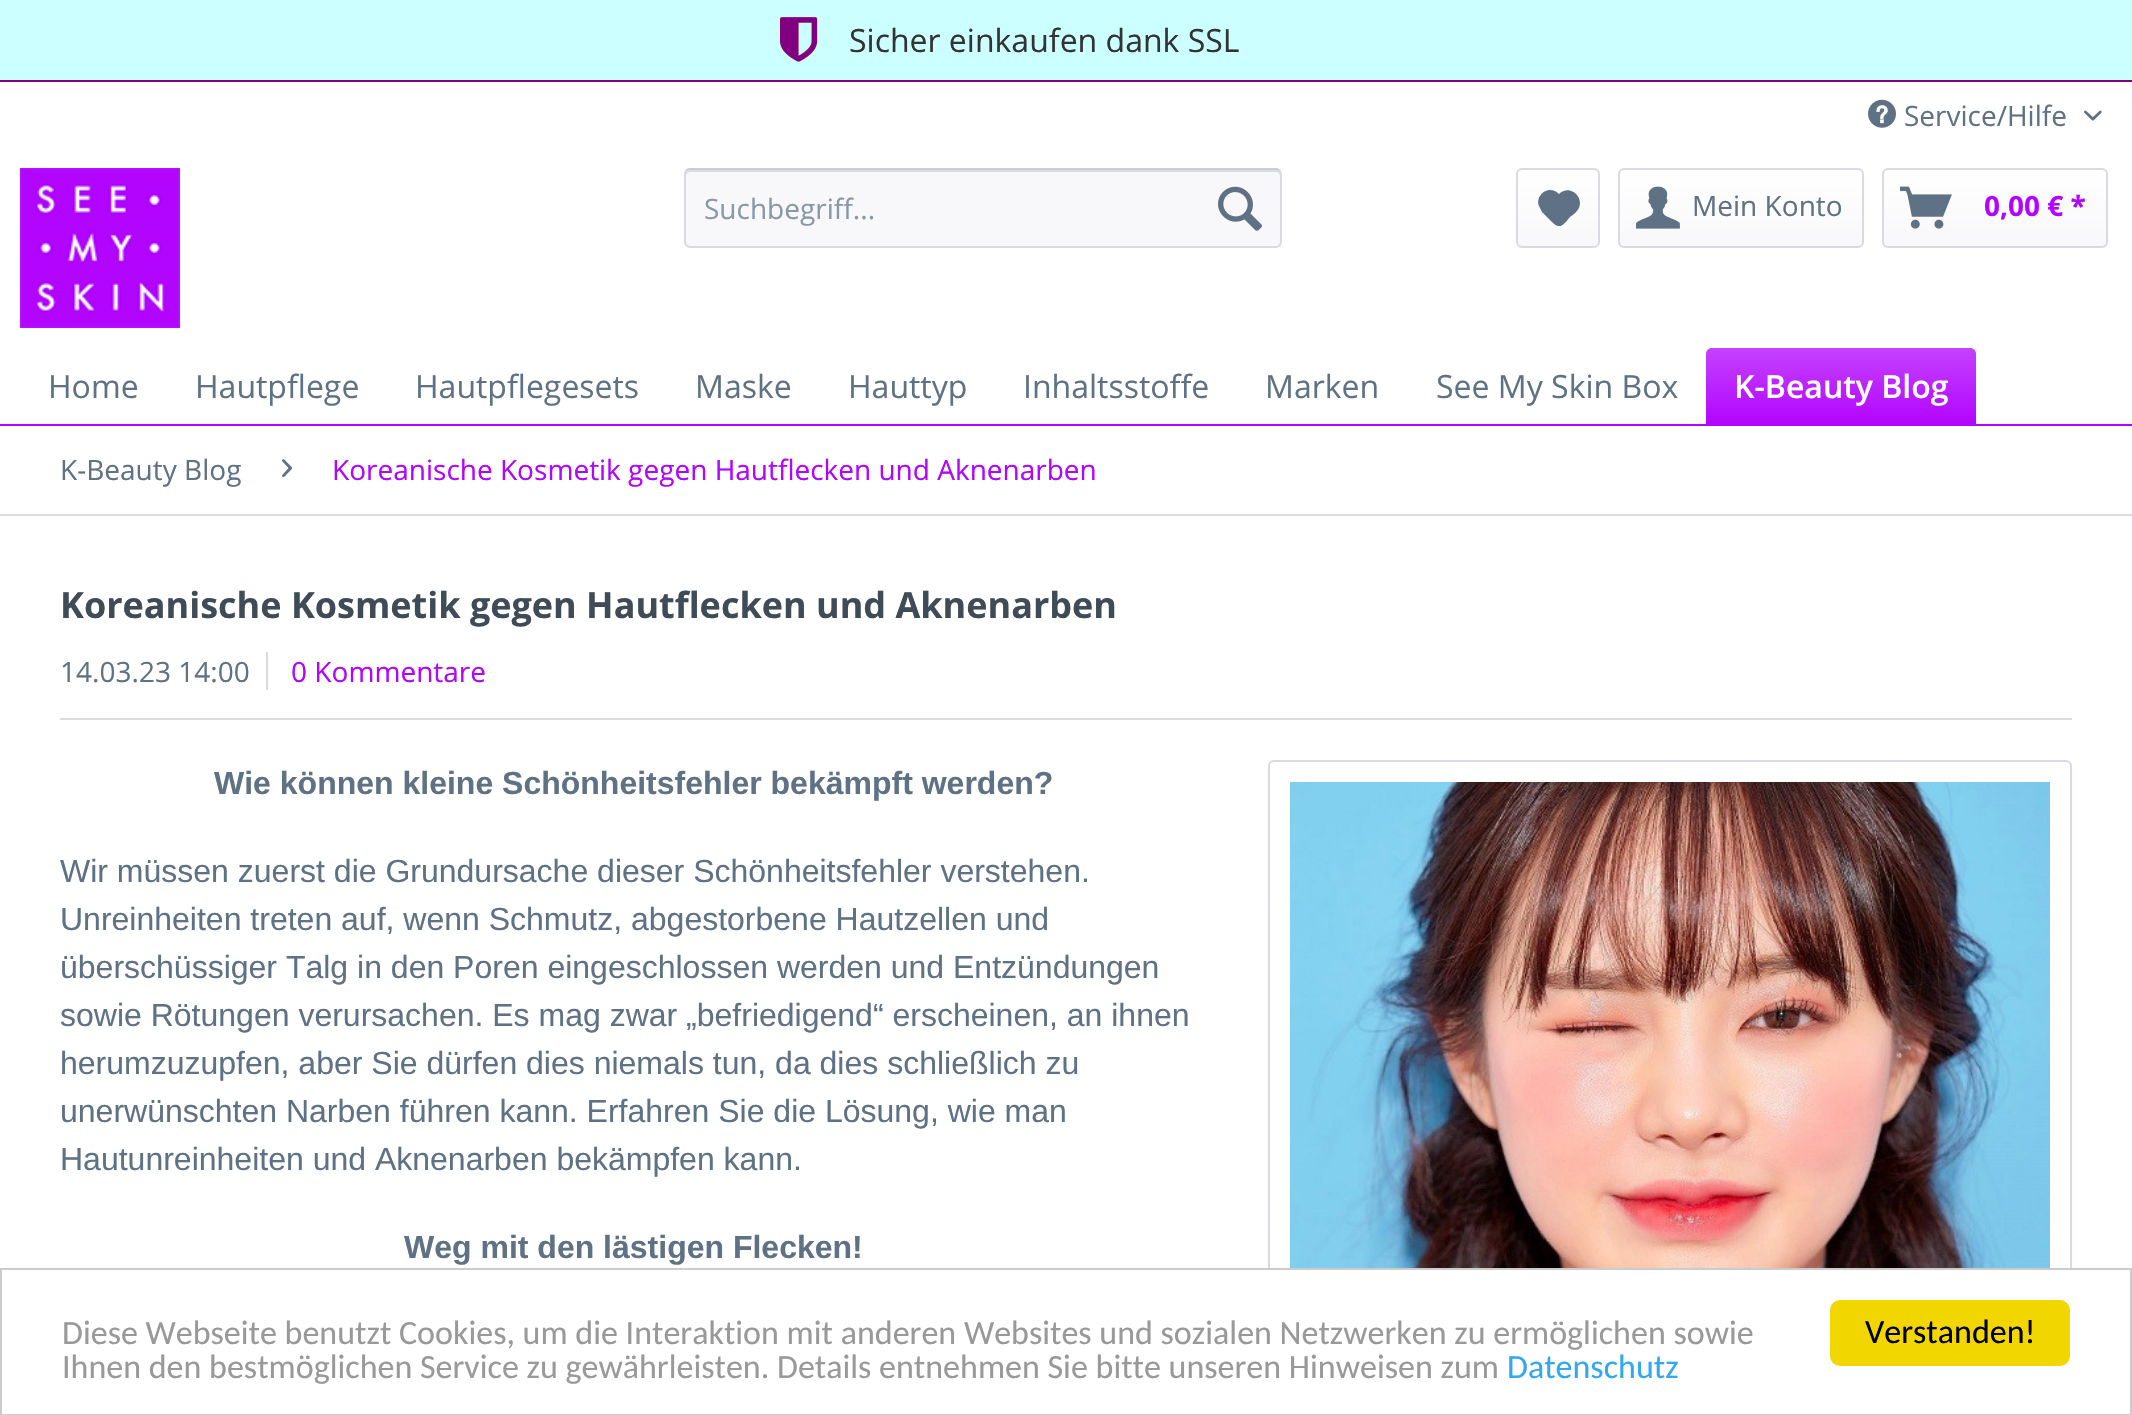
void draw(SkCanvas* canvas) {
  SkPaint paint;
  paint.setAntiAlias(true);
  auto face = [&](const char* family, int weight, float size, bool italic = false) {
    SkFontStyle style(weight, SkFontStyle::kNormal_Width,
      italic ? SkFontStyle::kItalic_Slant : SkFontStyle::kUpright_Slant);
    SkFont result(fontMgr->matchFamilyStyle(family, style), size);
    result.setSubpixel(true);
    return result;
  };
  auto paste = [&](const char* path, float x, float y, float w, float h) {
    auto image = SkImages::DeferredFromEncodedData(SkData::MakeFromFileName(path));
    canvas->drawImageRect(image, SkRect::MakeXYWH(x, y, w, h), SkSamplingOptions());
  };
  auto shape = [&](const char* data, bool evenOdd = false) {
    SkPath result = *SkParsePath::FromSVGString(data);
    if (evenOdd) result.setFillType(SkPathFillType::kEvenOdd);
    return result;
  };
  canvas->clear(0xffffffff);
  paint.setColor(0xffccffff);
  canvas->drawRect(SkRect::MakeXYWH(0, 0, 2132, 80), paint);
  paint.setColor(0xff800080);
  canvas->drawRect(SkRect::MakeXYWH(0, 80, 2132, 2), paint);
  paste("img/1.png", 780, 17, 38, 45);
  paste("img/2.png", 1868, 99, 28, 29);
  paste("img/3.png", 2084, 110, 18, 11);
  paste("img/4.png", 20, 168, 160, 160);
  paint.setColor(0xfff8f8fa);
  canvas->drawRoundRect(SkRect::MakeXYWH(684, 168, 598, 80), 6, 6, paint);
  paint.setColor(0xffdadae5);
  canvas->drawPath(shape("M690 172H1276C1278 172 1280 174 1280 176V174C1280 172 1278 170 1276 170H690C688 170 686 172 686 174V176C686 174 688 172 690 172Z"), paint);
  paint.setStroke(true);
  paint.setStrokeWidth(2);
  paint.setColor(0xffcbcbdb);
  canvas->drawPath(shape("M686.5 170.5C687.5 169.5 688.5 169 690 169H1276C1277.5 169 1278.5 169.5 1279.5 170.5"), paint);
  paint.setColor(0xffdadae5);
  canvas->drawPath(shape("M1279.5 170.5C1280.5 171.5 1281 172.5 1281 174V242C1281 243.5 1280.5 244.5 1279.5 245.5C1278.5 246.5 1277.5 247 1276 247H690C688.5 247 687.5 246.5 686.5 245.5C685.5 244.5 685 243.5 685 242V174C685 172.5 685.5 171.5 686.5 170.5"), paint);
  paste("img/5.png", 1218, 186, 44, 45);
  paint.setStroke(false);
  {
    const SkColor colors[] = {0xffffffff, 0xfff8f8fa};
    const float stops[] = {0, 1};
    const SkPoint ends[] = {{1558, 170}, {1558, 246}};
    paint.setShader(SkGradientShader::MakeLinear(ends, colors, stops, 2, SkTileMode::kClamp));
    paint.setAlpha(255);
  }
  canvas->drawRoundRect(SkRect::MakeXYWH(1518, 170, 80, 76), 4, 4, paint);
  paint.setStroke(true);
  paint.setShader(nullptr);
  paint.setColor(0xffdadae5);
  canvas->drawRoundRect(SkRect::MakeXYWH(1517, 169, 82, 78), 5, 5, paint);
  paint.setStroke(false);
  paint.setColor(0xff5f7285);
  canvas->drawPath(shape("M1550 190C1542 190 1536 199 1539 206L1542 212L1553 223C1561 230 1564 224 1570 217C1573 215 1577 212 1579 208C1584 196 1569 184 1559 194C1557 192 1554 190 1550 190Z"), paint);
  {
    const SkColor colors[] = {0xffffffff, 0xfff8f8fa};
    const float stops[] = {0, 1};
    const SkPoint ends[] = {{1741, 170}, {1741, 246}};
    paint.setShader(SkGradientShader::MakeLinear(ends, colors, stops, 2, SkTileMode::kClamp));
    paint.setAlpha(255);
  }
  canvas->drawRoundRect(SkRect::MakeXYWH(1620, 170, 242, 76), 4, 4, paint);
  paint.setStroke(true);
  paint.setShader(nullptr);
  paint.setColor(0xffdadae5);
  canvas->drawRoundRect(SkRect::MakeXYWH(1619, 169, 244, 78), 5, 5, paint);
  paste("img/6.png", 1636, 186, 44, 43);
  paint.setStroke(false);
  {
    const SkColor colors[] = {0xffffffff, 0xfff8f8fa};
    const float stops[] = {0, 1};
    const SkPoint ends[] = {{1995, 170}, {1995, 246}};
    paint.setShader(SkGradientShader::MakeLinear(ends, colors, stops, 2, SkTileMode::kClamp));
    paint.setAlpha(255);
  }
  canvas->drawRoundRect(SkRect::MakeXYWH(1884, 170, 222, 76), 4, 4, paint);
  paint.setStroke(true);
  paint.setShader(nullptr);
  paint.setColor(0xffdadae5);
  canvas->drawRoundRect(SkRect::MakeXYWH(1883, 169, 224, 78), 5, 5, paint);
  paste("img/7.png", 1900, 186, 52, 43);
  paint.setStroke(false);
  paint.setColor(0xffb205ff);
  canvas->drawRect(SkRect::MakeXYWH(0, 424, 2132, 2), paint);
  {
    const SkColor colors[] = {0xffc542ff, 0xffb205ff};
    const float stops[] = {0, 1};
    const SkPoint ends[] = {{1841, 348}, {1841, 424}};
    paint.setShader(SkGradientShader::MakeLinear(ends, colors, stops, 2, SkTileMode::kClamp));
    paint.setAlpha(255);
  }
  canvas->drawPath(shape("M1712 348H1970C1973.5 348 1976 350.5 1976 354V424H1706V354C1706 350.5 1708.5 348 1712 348Z"), paint);
  paint.setShader(nullptr);
  paint.setColor(0xffdadae5);
  canvas->drawRect(SkRect::MakeXYWH(0, 514, 2132, 2), paint);
  paste("img/8.png", 282, 459, 11, 19);
  canvas->drawRect(SkRect::MakeXYWH(60, 718, 2012, 2), paint);
  canvas->drawRect(SkRect::MakeXYWH(266, 652, 2, 38), paint);
  paint.setStroke(true);
  canvas->drawRoundRect(SkRect::MakeXYWH(1269, 761, 802, 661), 5, 5, paint);
  paste("img/9.png", 1290, 782, 760, 486);
  paint.setStroke(false);
  paint.setColor(0xffffffff);
  canvas->drawRect(SkRect::MakeXYWH(1268, 1270, 804, 144), paint);
  paint.setStroke(true);
  paint.setColor(0xffcccccc);
  canvas->drawRect(SkRect::MakeXYWH(1, 1269, 2130, 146), paint);
  paint.setStroke(false);
  paint.setColor(0xfff1d600);
  canvas->drawRoundRect(SkRect::MakeXYWH(1830, 1300, 240, 66), 10, 10, paint);
  auto f0 = face("Open Sans", 400, 32);
  paint.setColor(0xff333333);
  canvas->drawString("Sicher einkaufen dank SSL", 849, 52, f0, paint);
  auto f1 = face("Open Sans", 400, 28);
  paint.setColor(0xff5f7285);
  canvas->drawString("Service/Hilfe", 1904, 126, f1, paint);
  paint.setColor(0xff8798a9);
  canvas->drawString("Suchbegriff...", 704, 219, f1, paint);
  paint.setColor(0xff5f7285);
  canvas->drawString("Mein Konto", 1692, 216, f1, paint);
  auto f2 = face("Open Sans", 700, 28);
  paint.setColor(0xffb205ff);
  canvas->drawString("0,00 € *", 1984, 216, f2, paint);
  paint.setColor(0xff5f7285);
  {
    const struct { const char* s; float x, y; } items[] = {
      {"Home", 48, 398},
      {"Hautpflege", 195, 398},
      {"Hautpflegesets", 415, 398},
      {"Maske", 695, 398},
      {"Hauttyp", 848, 398},
      {"Inhaltsstoffe", 1023, 398},
      {"Marken", 1265, 398},
      {"See My Skin Box", 1436, 398},
    };
    for (auto [s, x, y] : items) {
      canvas->drawString(s, x, y, f0, paint);
    }
  }
  auto f3 = face("Open Sans", 600, 32);
  paint.setColor(0xffffffff);
  canvas->drawString("K-Beauty Blog", 1734, 398, f3, paint);
  paint.setColor(0xff5f7285);
  canvas->drawString("K-Beauty Blog", 60, 480, f1, paint);
  paint.setColor(0xffb205ff);
  canvas->drawString("Koreanische Kosmetik gegen Hautflecken und Aknenarben", 332, 480, f1, paint);
  auto f4 = face("Open Sans", 700, 36);
  paint.setColor(0xff3f4c58);
  canvas->drawString("Koreanische Kosmetik gegen Hautflecken und Aknenarben", 60, 618, f4, paint);
  paint.setColor(0xff5f7285);
  canvas->drawString("14.03.23 14:00", 60, 682, f1, paint);
  paint.setColor(0xffb205ff);
  canvas->drawString("0 Kommentare", 291, 682, f1, paint);
  auto f5 = face("Liberation Sans", 700, 32);
  paint.setColor(0xff5f7285);
  canvas->drawString("Wie können kleine Schönheitsfehler bekämpft werden?", 214, 794, f5, paint);
  auto f6 = face("Liberation Sans", 400, 32);
  {
    const struct { const char* s; float x, y; } items[] = {
      {"Wir müssen zuerst die Grundursache dieser Schönheitsfehler verstehen.", 60, 882},
      {"Unreinheiten treten auf, wenn Schmutz, abgestorbene Hautzellen und", 60, 930},
      {"überschüssiger Talg in den Poren eingeschlossen werden und Entzündungen", 60, 978},
      {"sowie Rötungen verursachen. Es mag zwar „befriedigend“ erscheinen, an ihnen", 60, 1026},
      {"herumzuzupfen, aber Sie dürfen dies niemals tun, da dies schließlich zu", 60, 1074},
      {"unerwünschten Narben führen kann. Erfahren Sie die Lösung, wie man", 60, 1122},
      {"Hautunreinheiten und Aknenarben bekämpfen kann.", 60, 1170},
    };
    for (auto [s, x, y] : items) {
      canvas->drawString(s, x, y, f6, paint);
    }
  }
  canvas->drawString("Weg mit den lästigen Flecken!", 404, 1258, f5, paint);
  auto f7 = face("Carlito", 400, 34);
  paint.setColor(0xff999999);
  canvas->drawString("Diese Webseite benutzt Cookies, um die Interaktion mit anderen Websites und sozialen Netzwerken zu ermöglichen sowie", 62, 1344, f7, paint);
  canvas->drawString("Ihnen den bestmöglichen Service zu gewährleisten. Details entnehmen Sie bitte unseren Hinweisen zum", 62, 1378, f7, paint);
  paint.setColor(0xff31a8f0);
  canvas->drawString("Datenschutz", 1507, 1378, f7, paint);
  paint.setColor(0xff000000);
  canvas->drawString("Verstanden!", 1865, 1343, f7, paint);
}
